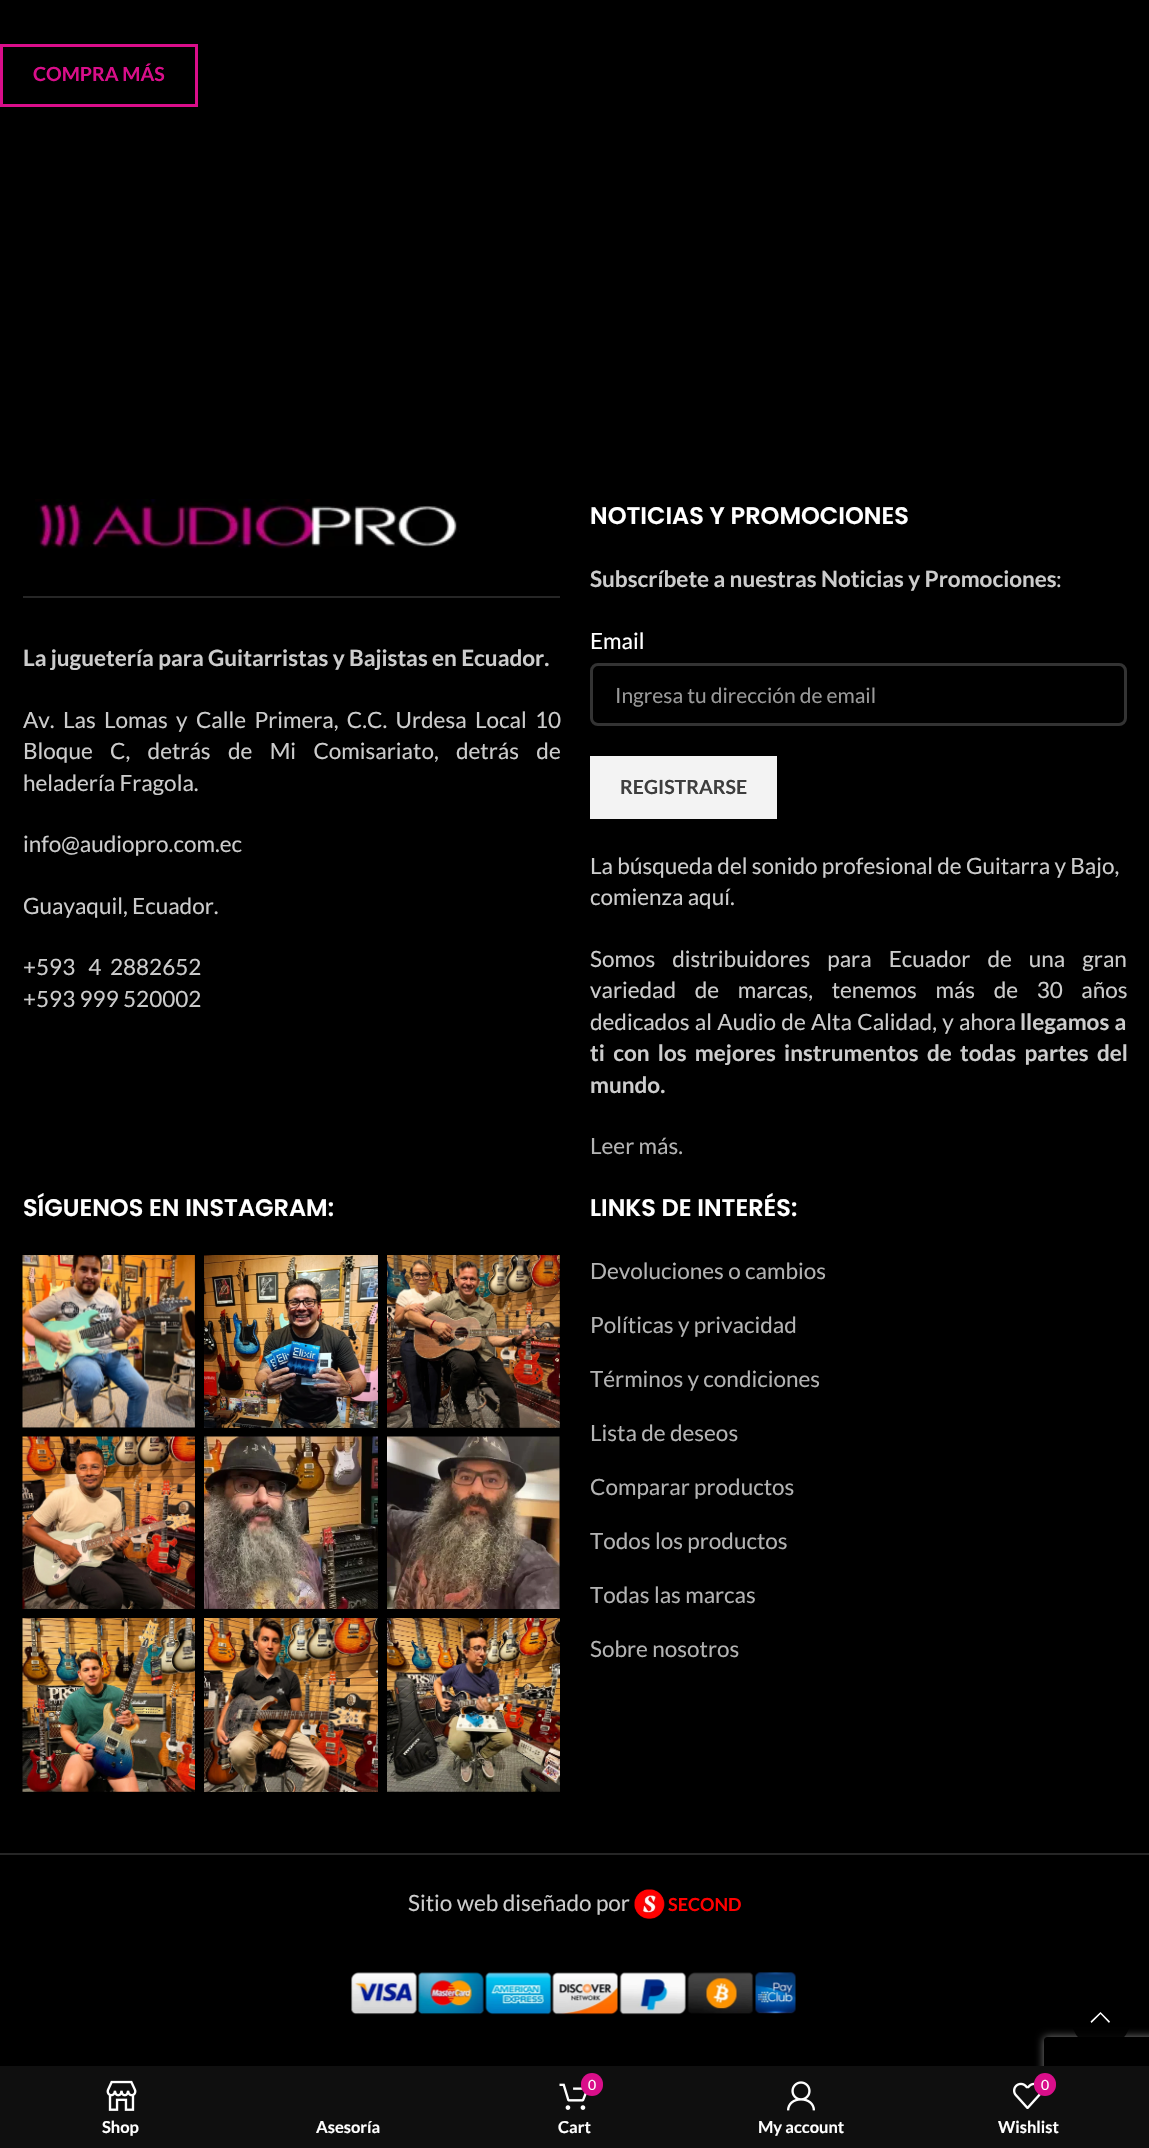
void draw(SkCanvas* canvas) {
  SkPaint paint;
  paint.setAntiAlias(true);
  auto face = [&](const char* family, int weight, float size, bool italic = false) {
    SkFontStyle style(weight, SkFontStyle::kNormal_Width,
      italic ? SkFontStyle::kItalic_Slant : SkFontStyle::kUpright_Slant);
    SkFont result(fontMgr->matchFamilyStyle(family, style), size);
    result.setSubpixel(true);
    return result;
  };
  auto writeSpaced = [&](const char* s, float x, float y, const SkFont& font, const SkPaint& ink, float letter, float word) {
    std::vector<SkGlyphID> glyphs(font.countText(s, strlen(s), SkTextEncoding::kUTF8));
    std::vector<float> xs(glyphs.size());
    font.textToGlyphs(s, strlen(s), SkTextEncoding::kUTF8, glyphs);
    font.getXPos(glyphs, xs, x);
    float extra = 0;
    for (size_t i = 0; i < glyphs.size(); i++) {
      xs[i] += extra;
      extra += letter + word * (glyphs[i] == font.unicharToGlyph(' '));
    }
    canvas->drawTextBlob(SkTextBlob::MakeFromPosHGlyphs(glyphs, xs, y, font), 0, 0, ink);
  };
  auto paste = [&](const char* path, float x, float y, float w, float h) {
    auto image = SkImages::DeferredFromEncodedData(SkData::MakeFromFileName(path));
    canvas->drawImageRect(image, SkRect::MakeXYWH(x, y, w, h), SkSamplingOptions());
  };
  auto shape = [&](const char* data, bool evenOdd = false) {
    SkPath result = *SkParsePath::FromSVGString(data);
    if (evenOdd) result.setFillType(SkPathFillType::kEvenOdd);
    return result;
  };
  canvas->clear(0xff000000);
  paint.setStroke(true);
  paint.setStrokeWidth(3);
  paint.setColor(0xffd90e8a);
  canvas->drawRect(SkRect::MakeXYWH(1.5f, 45.5f, 195, 60), paint);
  paint.setStroke(false);
  paint.setColor(0xff262626);
  canvas->drawRect(SkRect::MakeXYWH(23, 596, 537, 2), paint);
  paste("img/1.png", 35, 499, 425, 50);
  paint.setStroke(true);
  paint.setColor(0xff333333);
  canvas->drawRoundRect(SkRect::MakeXYWH(591.5f, 664.5f, 534, 60), 6.5f, 6.5f, paint);
  paint.setStroke(false);
  paint.setColor(0xfff3f3f3);
  canvas->drawRect(SkRect::MakeXYWH(590, 756, 187, 63), paint);
  paste("img/2.png", 22, 1255, 173, 173);
  paste("img/3.png", 204, 1255, 174, 173);
  paste("img/4.png", 387, 1255, 173, 173);
  paste("img/5.png", 22, 1436, 173, 173);
  paste("img/6.png", 204, 1436, 174, 173);
  paste("img/7.png", 387, 1436, 173, 173);
  paste("img/8.png", 22, 1618, 173, 174);
  paste("img/9.png", 204, 1618, 174, 174);
  paste("img/10.png", 387, 1618, 173, 174);
  paint.setColor(0xff262626);
  canvas->drawRect(SkRect::MakeXYWH(0, 1853, 1149, 2), paint);
  paste("img/11.png", 634, 1889, 31, 30);
  paste("img/12.png", 351, 1972, 445, 43);
  canvas->save();
  canvas->clipPath(shape("M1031 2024H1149V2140H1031ZM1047 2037H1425C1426.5 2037 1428 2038.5 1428 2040V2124C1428 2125.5 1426.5 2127 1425 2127H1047C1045.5 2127 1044 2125.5 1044 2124V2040C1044 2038.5 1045.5 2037 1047 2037Z", true), true);
  paint.setColor(0xff808080);
  paint.setMaskFilter(SkMaskFilter::MakeBlur(kNormal_SkBlurStyle, 4));
  canvas->drawRoundRect(SkRect::MakeXYWH(1044, 2037, 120, 90), 3, 3, paint);
  paint.setMaskFilter(nullptr);
  canvas->restore();
  paint.setColor(0xe6000000);
  canvas->drawCircle(1101, 2018, 30, paint);
  paint.setColor(0xffffffff);
  canvas->drawPath(shape("M1109 2023L1110 2021.5L1100.5 2012L1090.5 2021.5L1091.5 2023L1100.5 2014Z"), paint);
  paint.setColor(0xff0f0f0f);
  canvas->drawRect(SkRect::MakeXYWH(0, 2066, 1149, 82), paint);
  paste("img/13.png", 106, 2080, 31, 31);
  paste("img/14.png", 559, 2083, 28, 27);
  paint.setColor(0xffd90e8a);
  canvas->drawRoundRect(SkRect::MakeXYWH(581, 2073, 22, 23), 11, 11, paint);
  paste("img/15.png", 787, 2081, 28, 30);
  paste("img/16.png", 1013, 2082, 28, 27);
  canvas->drawRoundRect(SkRect::MakeXYWH(1034, 2073, 22, 23), 11, 11, paint);
  auto f0 = face("Lato", 700, 19.5f);
  canvas->drawString("COMPRA MÁS", 33, 81, f0, paint);
  auto f1 = face("Lato", 700, 22.5f);
  paint.setColor(0xffcccccc);
  canvas->drawString("La juguetería para Guitarristas y Bajistas en Ecuador.", 23, 666, f1, paint);
  auto f2 = face("Lato", 400, 22.5f);
  writeSpaced("Av. Las Lomas y Calle Primera, C.C. Urdesa Local 10", 23, 728, f2, paint, 0, 4);
  writeSpaced("Bloque C, detrás de Mi Comisariato, detrás de", 23, 759, f2, paint, 0, 13);
  {
    const struct { const char* s; float x, y; } items[] = {
      {"heladería Fragola.", 23, 791},
      {"info@audiopro.com.ec", 23, 852},
      {"Guayaquil, Ecuador.", 23, 914},
      {"+593   4  2882652", 23, 975},
      {"+593 999 520002", 23, 1007},
    };
    for (auto [s, x, y] : items) {
      canvas->drawString(s, x, y, f2, paint);
    }
  }
  auto f3 = face("Poppins", 600, 24);
  paint.setColor(0xffffffff);
  canvas->drawString("NOTICIAS Y PROMOCIONES", 590, 524, f3, paint);
  paint.setColor(0xffcccccc);
  canvas->drawString("Subscríbete a nuestras Noticias y Promociones", 590, 587, f1, paint);
  canvas->drawString(":", 1056, 587, f2, paint);
  paint.setColor(0xffffffff);
  canvas->drawString("Email", 590, 649, f2, paint);
  auto f4 = face("Lato", 400, 21);
  paint.setColor(0xff999999);
  canvas->drawString("Ingresa tu dirección de email", 615, 703, f4, paint);
  paint.setColor(0xff3e3e3e);
  canvas->drawString("REGISTRARSE", 620, 794, f0, paint);
  paint.setColor(0xffcccccc);
  canvas->drawString("La búsqueda del sonido profesional de Guitarra y Bajo,", 590, 874, f2, paint);
  canvas->drawString("comienza aquí.", 590, 905, f2, paint);
  writeSpaced("Somos distribuidores para Ecuador de una gran", 590, 967, f2, paint, 0, 12.75f);
  writeSpaced("variedad de marcas, tenemos más de 30 años", 590, 998, f2, paint, 0, 14.25f);
  writeSpaced("dedicados al Audio de Alta Calidad, y ahora", 590, 1030, f2, paint, 0, 1);
  writeSpaced("llegamos a", 1020, 1030, f1, paint, 0, 1);
  writeSpaced("ti con los mejores instrumentos de todas partes del", 590, 1061, f1, paint, 0, 4);
  canvas->drawString("mundo.", 590, 1093, f1, paint);
  paint.setColor(0xffb3b3b3);
  canvas->drawString("Leer más.", 590, 1154, f2, paint);
  paint.setColor(0xffffffff);
  canvas->drawString("SÍGUENOS EN INSTAGRAM:", 23, 1216, f3, paint);
  canvas->drawString("LINKS DE INTERÉS:", 590, 1216, f3, paint);
  paint.setColor(0xffb3b3b3);
  {
    const struct { const char* s; float x, y; } items[] = {
      {"Devoluciones o cambios", 590, 1279},
      {"Políticas y privacidad", 590, 1333},
      {"Términos y condiciones", 590, 1387},
      {"Lista de deseos", 590, 1441},
      {"Comparar productos", 590, 1495},
      {"Todos los productos", 590, 1549},
      {"Todas las marcas", 590, 1603},
      {"Sobre nosotros", 590, 1657},
    };
    for (auto [s, x, y] : items) {
      canvas->drawString(s, x, y, f2, paint);
    }
  }
  paint.setColor(0xffcccccc);
  canvas->drawString("Sitio web diseñado por", 408, 1911, f2, paint);
  auto f5 = face("Lato", 700, 18);
  paint.setColor(0xffff0000);
  canvas->drawString("SECOND", 668, 1911, f5, paint);
  auto f6 = face("Lato", 700, 16.5f);
  paint.setColor(0xffffffff);
  canvas->drawString("Shop", 102, 2133, f6, paint);
  canvas->drawString("Asesoría", 316, 2133, f6, paint);
  auto f7 = face("Lato", 400, 14);
  canvas->drawString("0", 588, 2090, f7, paint);
  canvas->drawString("Cart", 558, 2133, f6, paint);
  canvas->drawString("My account", 758, 2133, f6, paint);
  canvas->drawString("0", 1041, 2090, f7, paint);
  canvas->drawString("Wishlist", 998, 2133, f6, paint);
}
